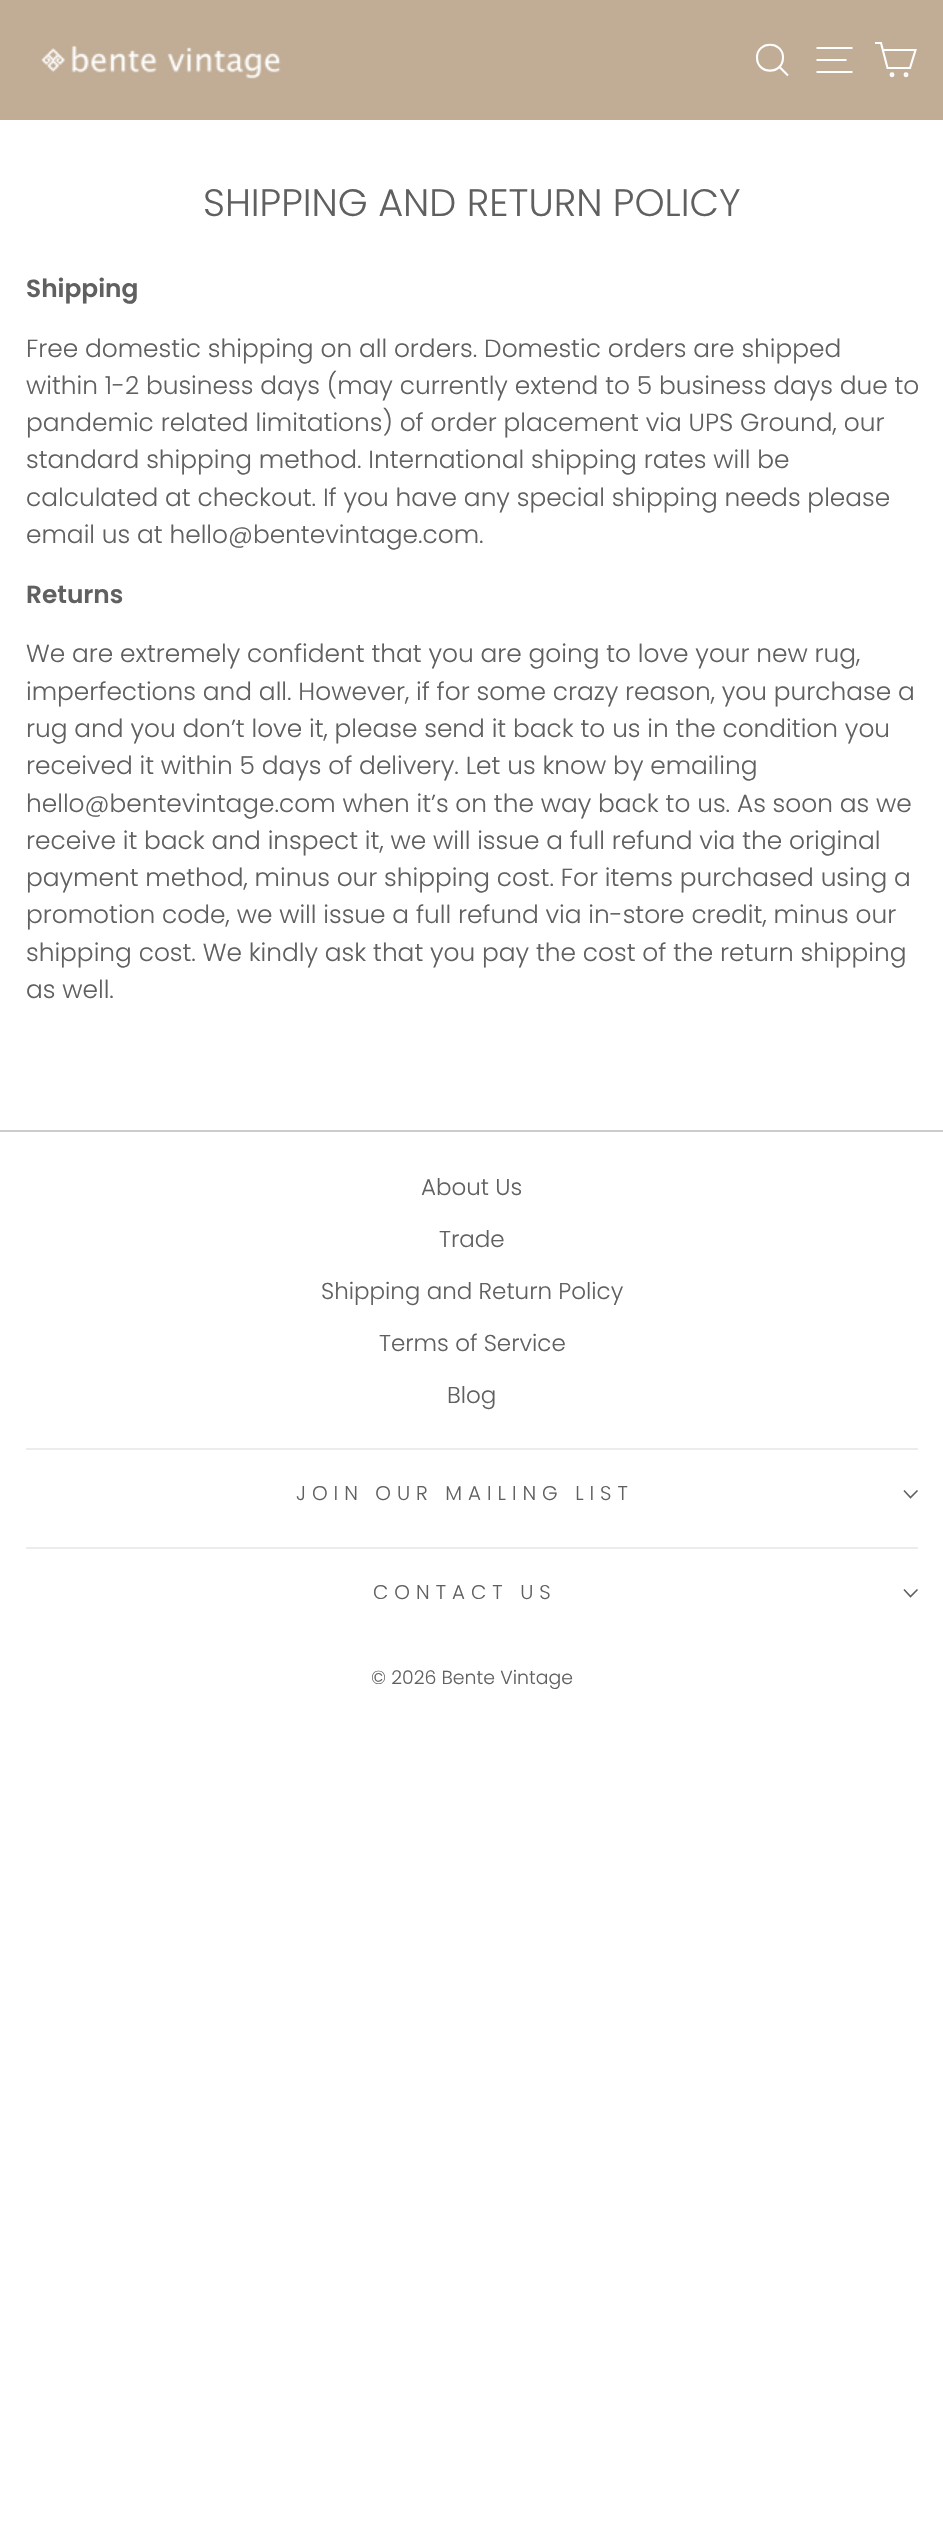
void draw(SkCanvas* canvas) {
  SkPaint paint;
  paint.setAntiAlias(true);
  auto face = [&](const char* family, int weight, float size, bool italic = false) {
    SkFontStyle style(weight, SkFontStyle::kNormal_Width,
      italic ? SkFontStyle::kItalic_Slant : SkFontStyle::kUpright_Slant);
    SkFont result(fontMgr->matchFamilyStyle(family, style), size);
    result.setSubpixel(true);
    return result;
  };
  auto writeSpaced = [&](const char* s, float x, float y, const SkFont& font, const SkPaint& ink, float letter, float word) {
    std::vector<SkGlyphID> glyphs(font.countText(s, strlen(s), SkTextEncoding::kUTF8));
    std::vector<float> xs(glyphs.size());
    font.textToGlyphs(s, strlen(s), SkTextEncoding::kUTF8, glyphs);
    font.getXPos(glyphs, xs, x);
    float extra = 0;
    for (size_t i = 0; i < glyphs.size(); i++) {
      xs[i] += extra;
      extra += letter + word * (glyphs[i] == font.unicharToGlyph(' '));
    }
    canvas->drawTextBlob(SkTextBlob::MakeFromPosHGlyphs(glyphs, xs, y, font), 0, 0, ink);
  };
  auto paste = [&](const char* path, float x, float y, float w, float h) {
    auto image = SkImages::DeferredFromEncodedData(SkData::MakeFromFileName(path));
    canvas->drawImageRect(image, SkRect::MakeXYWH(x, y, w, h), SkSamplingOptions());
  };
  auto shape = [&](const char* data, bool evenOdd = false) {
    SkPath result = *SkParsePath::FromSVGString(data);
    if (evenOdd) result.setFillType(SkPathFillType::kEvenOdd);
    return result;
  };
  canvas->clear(0xffffffff);
  paint.setColor(0xffc1ad95);
  canvas->drawRect(SkRect::MakeXYWH(0, 0, 943, 120), paint);
  paste("img/1.png", 41, 45, 240, 34);
  paint.setStroke(true);
  paint.setStrokeWidth(2.1f);
  paint.setColor(0xffffffff);
  canvas->drawPath(shape("M783 57.5C783 75 757 75 757 57.5C757 40.5 783 40.5 783 57.5ZM788 75.5L779.5 67"), paint);
  canvas->drawPath(shape("M816.5 48H852.5M816.5 60H846.5M816.5 72H852.5"), paint);
  canvas->drawPath(shape("M883 50H915.5L910 68H887.5L881 43H875"), paint);
  canvas->drawCircle(892, 74.8f, 1.4f, paint);
  canvas->drawCircle(906, 74.8f, 1.4f, paint);
  paint.setStroke(false);
  paint.setColor(0xffcccccc);
  canvas->drawRect(SkRect::MakeXYWH(0, 1130, 943, 2), paint);
  paint.setColor(0xffececec);
  canvas->drawRect(SkRect::MakeXYWH(26, 1448, 892, 2), paint);
  paint.setStroke(true);
  paint.setStrokeWidth(1.6f);
  paint.setColor(0xff606060);
  canvas->drawPath(shape("M904 1490.5L910.5 1497.5L917.5 1490.5"), paint);
  paint.setStroke(false);
  paint.setColor(0xffececec);
  canvas->drawRect(SkRect::MakeXYWH(26, 1547, 892, 2), paint);
  paint.setStroke(true);
  paint.setColor(0xff606060);
  canvas->drawPath(shape("M904 1589.5L910.5 1596.5L917.5 1589.5"), paint);
  auto f0 = face("Poppins", 300, 38.25f);
  paint.setStroke(false);
  canvas->drawString("SHIPPING AND RETURN POLICY", 203, 216, f0, paint);
  auto f1 = face("Poppins", 600, 24.85f);
  canvas->drawString("Shipping", 26, 297, f1, paint);
  auto f2 = face("Poppins", 300, 24.85f);
  {
    const struct { const char* s; float x, y; } items[] = {
      {"Free domestic shipping on all orders. Domestic orders are shipped", 26, 357},
      {"within 1-2 business days (may currently extend to 5 business days due to", 26, 394},
      {"pandemic related limitations) of order placement via UPS Ground, our", 26, 431},
      {"standard shipping method. International shipping rates will be", 26, 468},
      {"calculated at checkout. If you have any special shipping needs please", 26, 506},
      {"email us at hello@bentevintage.com.", 26, 543},
    };
    for (auto [s, x, y] : items) {
      canvas->drawString(s, x, y, f2, paint);
    }
  }
  canvas->drawString("Returns", 26, 603, f1, paint);
  {
    const struct { const char* s; float x, y; } items[] = {
      {"We are extremely confident that you are going to love your new rug,", 26, 662},
      {"imperfections and all. However, if for some crazy reason, you purchase a", 26, 700},
      {"rug and you don’t love it, please send it back to us in the condition you", 26, 737},
      {"received it within 5 days of delivery. Let us know by emailing", 26, 774},
      {"hello@bentevintage.com when it’s on the way back to us. As soon as we", 26, 812},
      {"receive it back and inspect it, we will issue a full refund via the original", 26, 849},
      {"payment method, minus our shipping cost. For items purchased using a", 26, 886},
      {"promotion code, we will issue a full refund via in-store credit, minus our", 26, 923},
      {"shipping cost. We kindly ask that you pay the cost of the return shipping", 26, 961},
      {"as well.", 26, 998},
    };
    for (auto [s, x, y] : items) {
      canvas->drawString(s, x, y, f2, paint);
    }
  }
  auto f3 = face("Poppins", 300, 23);
  {
    const struct { const char* s; float x, y; } items[] = {
      {"About Us", 421, 1195},
      {"Trade", 439, 1247},
      {"Shipping and Return Policy", 321, 1299},
      {"Terms of Service", 379, 1351},
      {"Blog", 447, 1403},
    };
    for (auto [s, x, y] : items) {
      canvas->drawString(s, x, y, f3, paint);
    }
  }
  auto f4 = face("Poppins", 300, 19.9f);
  writeSpaced("JOIN OUR MAILING LIST", 296, 1500, f4, paint, 6, 0);
  writeSpaced("CONTACT US", 373, 1599, f4, paint, 6, 0);
  auto f5 = face("Poppins", 300, 18.9f);
  canvas->drawString("© 2026 Bente Vintage", 371, 1684, f5, paint);
}
